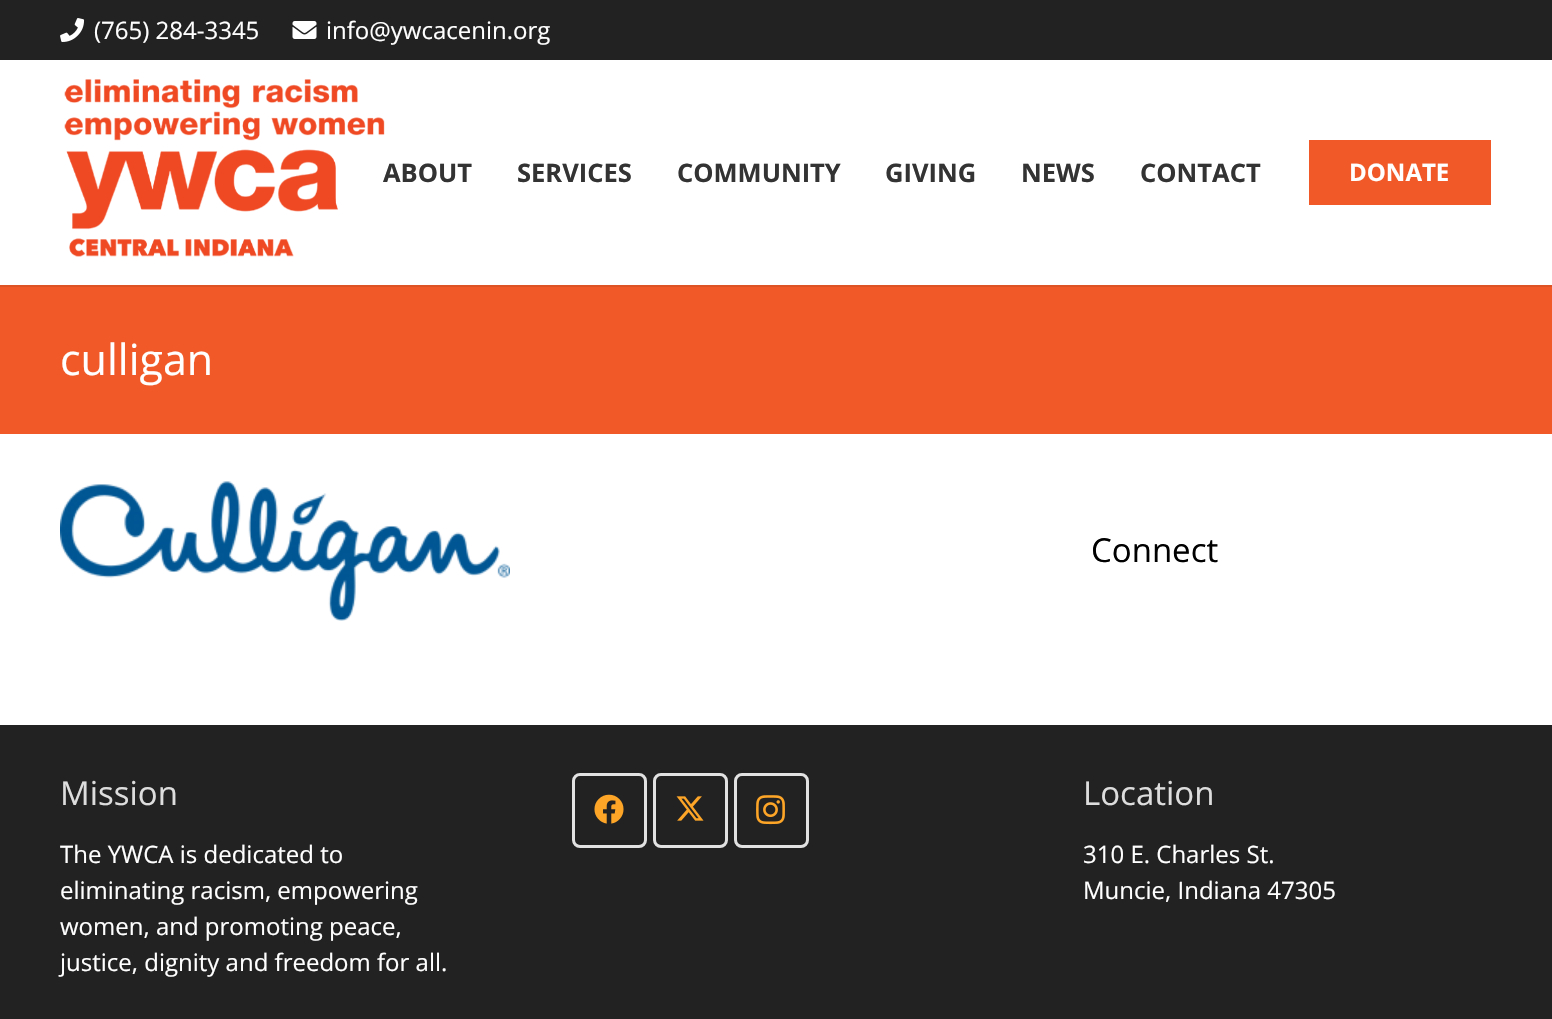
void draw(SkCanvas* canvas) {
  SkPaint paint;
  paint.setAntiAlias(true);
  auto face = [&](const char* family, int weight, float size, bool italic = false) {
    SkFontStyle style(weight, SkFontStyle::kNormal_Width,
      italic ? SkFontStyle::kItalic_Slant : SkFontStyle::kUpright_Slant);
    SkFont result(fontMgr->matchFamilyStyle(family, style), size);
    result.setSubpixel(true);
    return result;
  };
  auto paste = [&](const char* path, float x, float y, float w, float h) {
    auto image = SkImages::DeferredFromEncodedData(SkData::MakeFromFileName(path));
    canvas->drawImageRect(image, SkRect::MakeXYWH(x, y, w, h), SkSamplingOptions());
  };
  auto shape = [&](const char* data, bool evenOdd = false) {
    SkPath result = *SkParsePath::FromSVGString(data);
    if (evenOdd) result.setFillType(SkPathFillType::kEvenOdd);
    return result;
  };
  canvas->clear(0xffffffff);
  paint.setColor(0xff222222);
  canvas->drawRect(SkRect::MakeXYWH(0, 0, 1552, 60), paint);
  paste("img/1.png", 60, 18, 25, 24);
  paste("img/2.png", 292, 21, 25, 18);
  paint.setColor(0xffde5325);
  canvas->drawPath(shape("M0 285V287H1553V62H1552V285Z"), paint);
  paste("img/3.png", 64, 79, 321, 178);
  paint.setColor(0xfff15a28);
  canvas->drawRoundRect(SkRect::MakeXYWH(1307, 138, 186, 69), 1, 1, paint);
  paint.setStroke(true);
  paint.setStrokeWidth(2);
  paint.setColor(0xffffffff);
  canvas->drawRect(SkRect::MakeXYWH(1308, 139, 184, 67), paint);
  paint.setStroke(false);
  paint.setColor(0xfff15a28);
  canvas->drawRect(SkRect::MakeXYWH(0, 287, 1552, 147), paint);
  paste("img/4.png", 60, 481, 450, 140);
  paint.setColor(0xff222222);
  canvas->drawRect(SkRect::MakeXYWH(0, 725, 1552, 294), paint);
  paint.setStroke(true);
  paint.setStrokeWidth(3);
  paint.setColor(0xffe2e2e2);
  canvas->drawRoundRect(SkRect::MakeXYWH(573.5f, 774.5f, 72, 72), 6.5f, 6.5f, paint);
  paste("img/5.png", 594, 794, 30, 30);
  canvas->drawRoundRect(SkRect::MakeXYWH(654.5f, 774.5f, 72, 72), 6.5f, 6.5f, paint);
  paste("img/6.png", 676, 796, 28, 25);
  canvas->drawRoundRect(SkRect::MakeXYWH(735.5f, 774.5f, 72, 72), 6.5f, 6.5f, paint);
  paste("img/7.png", 756, 795, 29, 30);
  auto f0 = face("Open Sans", 400, 24);
  paint.setStroke(false);
  paint.setColor(0xffffffff);
  canvas->drawString("(765) 284-3345", 94, 39, f0, paint);
  canvas->drawString("info@ywcacenin.org", 326, 39, f0, paint);
  auto f1 = face("Open Sans", 700, 25.5f);
  paint.setColor(0xff333333);
  {
    const struct { const char* s; float x, y; } items[] = {
      {"ABOUT", 383, 182},
      {"SERVICES", 517, 182},
      {"COMMUNITY", 677, 182},
      {"GIVING", 885, 182},
      {"NEWS", 1021, 182},
      {"CONTACT", 1140, 182},
    };
    for (auto [s, x, y] : items) {
      canvas->drawString(s, x, y, f1, paint);
    }
  }
  auto f2 = face("Open Sans", 700, 24);
  paint.setColor(0xffffffff);
  canvas->drawString("DONATE", 1349, 181, f2, paint);
  auto f3 = face("Open Sans", 400, 43);
  canvas->drawString("culligan", 60, 375, f3, paint);
  auto f4 = face("Open Sans", 400, 33);
  paint.setColor(0xff000000);
  canvas->drawString("Connect", 1091, 562, f4, paint);
  paint.setColor(0xffdddddd);
  canvas->drawString("Mission", 60, 805, f4, paint);
  paint.setColor(0xffffffff);
  {
    const struct { const char* s; float x, y; } items[] = {
      {"The YWCA is dedicated to", 60, 863},
      {"eliminating racism, empowering", 60, 899},
      {"women, and promoting peace,", 60, 935},
      {"justice, dignity and freedom for all.", 60, 971},
    };
    for (auto [s, x, y] : items) {
      canvas->drawString(s, x, y, f0, paint);
    }
  }
  paint.setColor(0xffdddddd);
  canvas->drawString("Location", 1083, 805, f4, paint);
  paint.setColor(0xffffffff);
  canvas->drawString("310 E. Charles St.", 1083, 863, f0, paint);
  canvas->drawString("Muncie, Indiana 47305", 1083, 899, f0, paint);
}
